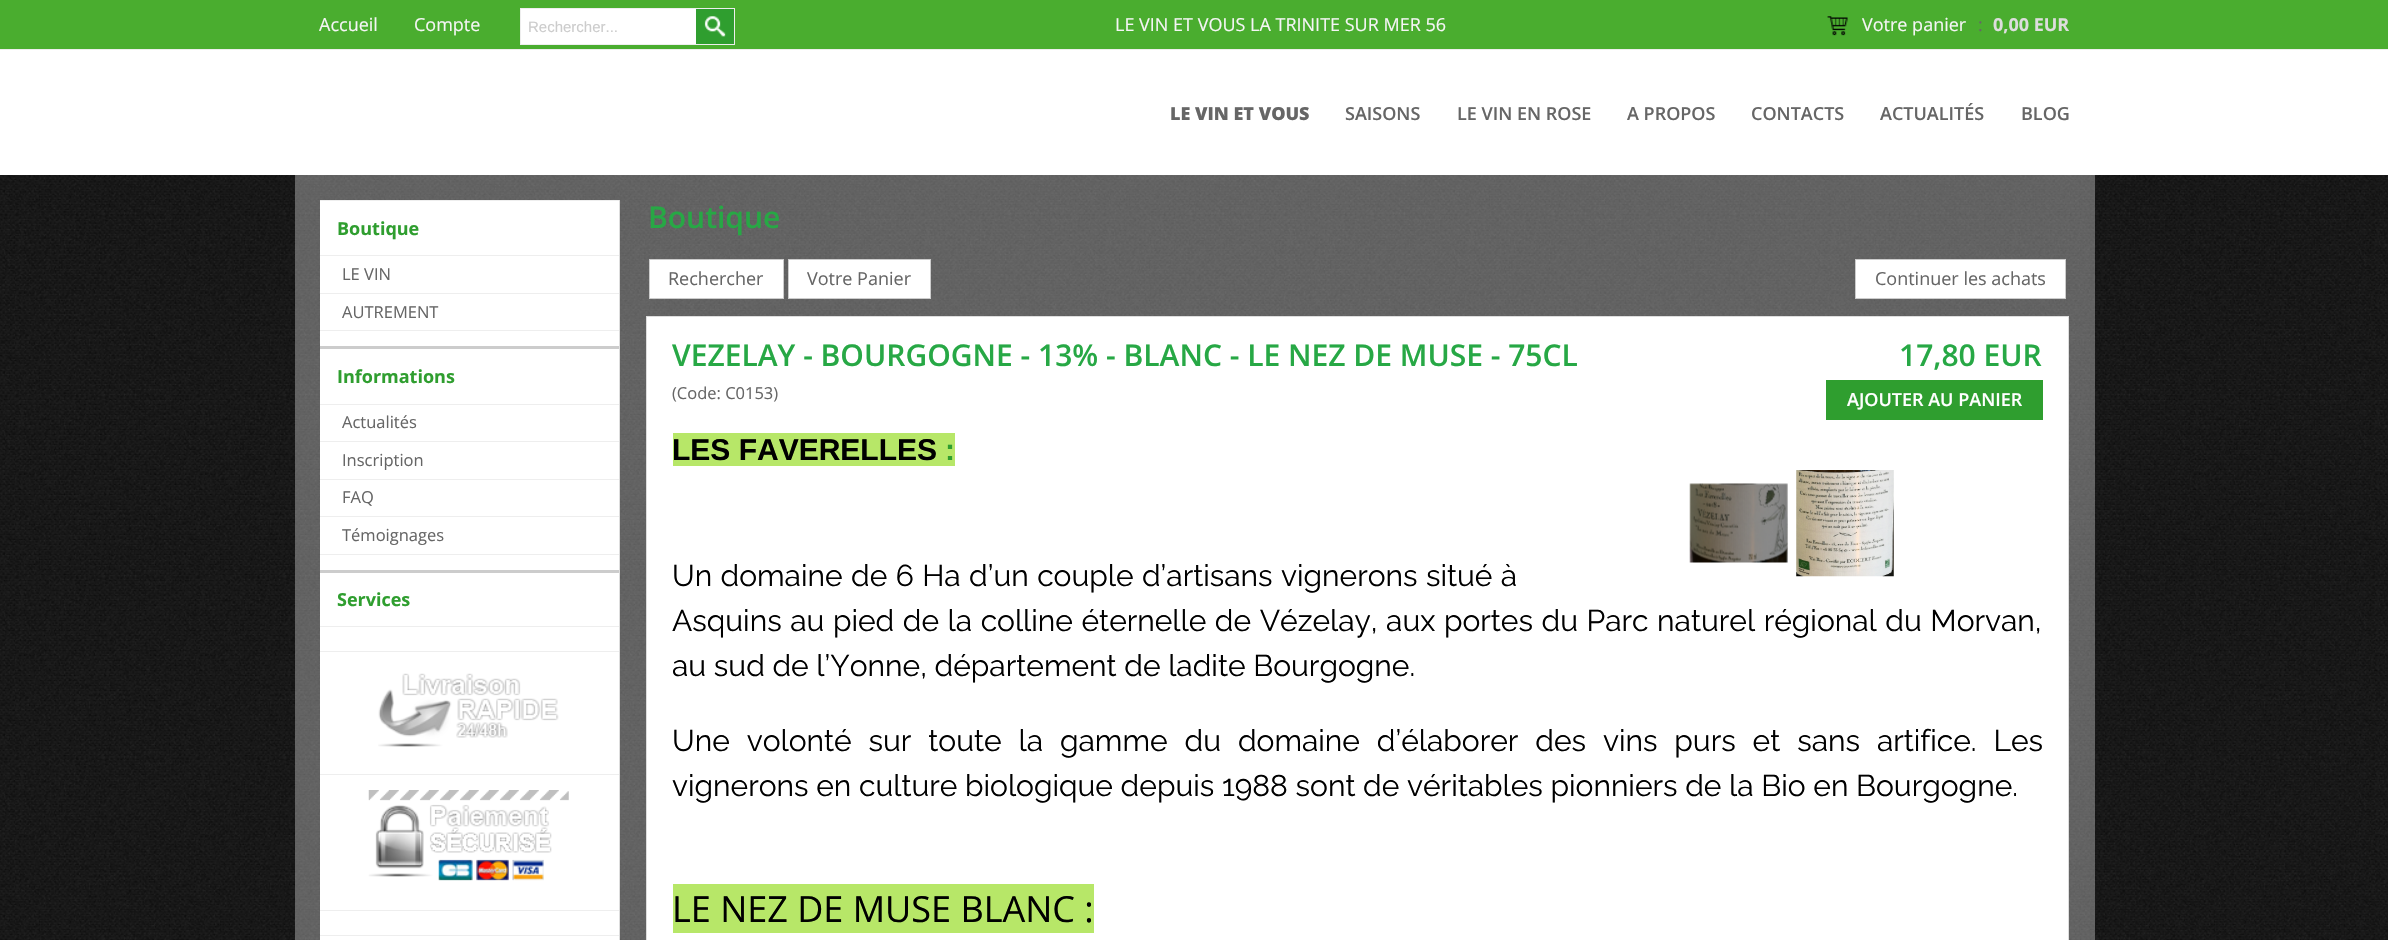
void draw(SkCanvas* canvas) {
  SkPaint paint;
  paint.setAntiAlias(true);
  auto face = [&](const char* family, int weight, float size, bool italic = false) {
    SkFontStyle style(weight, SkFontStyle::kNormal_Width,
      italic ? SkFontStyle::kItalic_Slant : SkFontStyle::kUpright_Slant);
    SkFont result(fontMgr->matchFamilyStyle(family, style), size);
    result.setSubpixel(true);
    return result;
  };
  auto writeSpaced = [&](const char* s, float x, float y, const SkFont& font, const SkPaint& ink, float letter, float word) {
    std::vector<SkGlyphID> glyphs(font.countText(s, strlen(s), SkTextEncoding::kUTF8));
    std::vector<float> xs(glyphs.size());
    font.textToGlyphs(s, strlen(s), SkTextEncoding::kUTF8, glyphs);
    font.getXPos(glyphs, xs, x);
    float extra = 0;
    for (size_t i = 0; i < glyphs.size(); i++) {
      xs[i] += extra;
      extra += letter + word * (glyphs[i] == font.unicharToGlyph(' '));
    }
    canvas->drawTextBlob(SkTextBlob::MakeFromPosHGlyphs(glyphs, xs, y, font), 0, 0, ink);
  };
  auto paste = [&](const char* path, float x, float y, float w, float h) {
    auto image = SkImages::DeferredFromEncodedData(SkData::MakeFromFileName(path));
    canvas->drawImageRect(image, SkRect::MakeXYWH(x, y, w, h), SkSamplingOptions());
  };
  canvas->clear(0xffffffff);
  {
    const struct { float x, y, w, h; SkColor color; } items[] = {
      {0, 0, 2388, 49, 0xff4aad2f},
      {0, 49, 2388, 1, 0xffeeeeee},
      {521, 9, 175, 35, 0xffffffff},
    };
    for (auto [x, y, w, h, color] : items) {
      paint.setColor(color);
      canvas->drawRect(SkRect::MakeXYWH(x, y, w, h), paint);
    }
  }
  paint.setStroke(true);
  paint.setStrokeWidth(1);
  paint.setColor(0xffeeeeee);
  canvas->drawRect(SkRect::MakeXYWH(520.5f, 8.5f, 214, 36), paint);
  paint.setStroke(false);
  paint.setColor(0xff2f9e2f);
  canvas->drawRect(SkRect::MakeXYWH(696, 9, 38, 35), paint);
  paste("img/1.png", 704, 16, 22, 21);
  paste("img/2.png", 1827, 16, 21, 20);
  paste("img/3.png", 0, 175, 2388, 765);
  {
    const struct { float x, y, w, h; SkColor color; } items[] = {
      {295, 175, 1800, 765, 0x52ffffff},
      {320, 201, 299, 739, 0xffffffff},
      {619, 200, 1, 740, 0xffdddddd},
      {320, 200, 299, 1, 0xffeeeeee},
      {320, 255, 299, 1, 0xffeeeeee},
      {320, 293, 299, 1, 0xffeeeeee},
      {320, 330, 299, 1, 0xffeeeeee},
      {320, 346, 299, 3, 0xffcccccc},
      {320, 404, 299, 1, 0xffeeeeee},
      {320, 441, 299, 1, 0xffeeeeee},
      {320, 479, 299, 1, 0xffeeeeee},
      {320, 516, 299, 1, 0xffeeeeee},
      {320, 554, 299, 1, 0xffeeeeee},
      {320, 570, 299, 3, 0xffcccccc},
      {320, 626, 299, 1, 0xffeeeeee},
      {320, 651, 299, 1, 0xffeeeeee},
      {320, 774, 299, 1, 0xffeeeeee},
    };
    for (auto [x, y, w, h, color] : items) {
      paint.setColor(color);
      canvas->drawRect(SkRect::MakeXYWH(x, y, w, h), paint);
    }
  }
  paste("img/4.png", 378, 673, 181, 74);
  canvas->drawRect(SkRect::MakeXYWH(320, 910, 299, 1), paint);
  paste("img/5.png", 368, 790, 201, 91);
  canvas->drawRect(SkRect::MakeXYWH(320, 935, 299, 1), paint);
  paint.setColor(0xffffffff);
  canvas->drawRect(SkRect::MakeXYWH(649.5f, 259.5f, 134, 39), paint);
  paint.setStroke(true);
  paint.setColor(0xffcccccc);
  canvas->drawRect(SkRect::MakeXYWH(649.5f, 259.5f, 134, 39), paint);
  paint.setStroke(false);
  paint.setColor(0xffffffff);
  canvas->drawRect(SkRect::MakeXYWH(788.5f, 259.5f, 142, 39), paint);
  paint.setStroke(true);
  paint.setColor(0xffcccccc);
  canvas->drawRect(SkRect::MakeXYWH(788.5f, 259.5f, 142, 39), paint);
  paint.setStroke(false);
  paint.setColor(0xffffffff);
  canvas->drawRect(SkRect::MakeXYWH(1855.5f, 259.5f, 210, 39), paint);
  paint.setStroke(true);
  paint.setColor(0xffcccccc);
  canvas->drawRect(SkRect::MakeXYWH(1855.5f, 259.5f, 210, 39), paint);
  paint.setStroke(false);
  paint.setColor(0xffffffff);
  canvas->drawRect(SkRect::MakeXYWH(646.5f, 316.5f, 1422, 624), paint);
  paint.setStroke(true);
  paint.setColor(0xffdddddd);
  canvas->drawRect(SkRect::MakeXYWH(646.5f, 316.5f, 1422, 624), paint);
  paint.setStroke(false);
  {
    const struct { float x, y, w, h; SkColor color; } items[] = {
      {1826, 380, 217, 40, 0xff2f9e2f},
      {673, 433, 282, 33, 0xffb7e768},
      {673, 884, 421, 49, 0xffb7e768},
    };
    for (auto [x, y, w, h, color] : items) {
      paint.setColor(color);
      canvas->drawRect(SkRect::MakeXYWH(x, y, w, h), paint);
    }
  }
  paste("img/6.png", 1689, 483, 99, 80);
  paste("img/7.png", 1796, 470, 98, 107);
  auto f0 = face("Open Sans", 400, 18);
  paint.setColor(0xfff5f5f5);
  canvas->drawString("Accueil", 319, 31, f0, paint);
  canvas->drawString("Compte", 414, 31, f0, paint);
  auto f1 = face("Liberation Sans", 400, 15);
  paint.setColor(0xffcccccc);
  canvas->drawString("Rechercher...", 528, 32, f1, paint);
  paint.setColor(0xfff5f5f5);
  canvas->drawString("LE VIN ET VOUS LA TRINITE SUR MER 56", 1115, 31, f0, paint);
  canvas->drawString("Votre panier", 1862, 31, f0, paint);
  paint.setColor(0xff666666);
  canvas->drawString(":", 1978, 31, f0, paint);
  auto f2 = face("Open Sans", 700, 18);
  paint.setColor(0xffdddddd);
  canvas->drawString("0,00 EUR", 1993, 31, f2, paint);
  auto f3 = face("Open Sans", 800, 18);
  paint.setColor(0xff666666);
  canvas->drawString("LE VIN ET VOUS", 1170, 120, f3, paint);
  auto f4 = face("Open Sans", 600, 18);
  {
    const struct { const char* s; float x, y; } items[] = {
      {"SAISONS", 1345, 120},
      {"LE VIN EN ROSE", 1457, 120},
      {"A PROPOS", 1627, 120},
      {"CONTACTS", 1751, 120},
      {"ACTUALITÉS", 1880, 120},
      {"BLOG", 2021, 120},
    };
    for (auto [s, x, y] : items) {
      canvas->drawString(s, x, y, f4, paint);
    }
  }
  paint.setColor(0xff2f9e2f);
  canvas->drawString("Boutique", 337, 235, f2, paint);
  auto f5 = face("Open Sans", 400, 16.5f);
  paint.setColor(0xff666666);
  canvas->drawString("LE VIN", 342, 280, f5, paint);
  canvas->drawString("AUTREMENT", 342, 318, f5, paint);
  paint.setColor(0xff2f9e2f);
  canvas->drawString("Informations", 337, 383, f2, paint);
  paint.setColor(0xff666666);
  {
    const struct { const char* s; float x, y; } items[] = {
      {"Actualités", 342, 428},
      {"Inscription", 342, 466},
      {"FAQ", 342, 503},
      {"Témoignages", 342, 541},
    };
    for (auto [s, x, y] : items) {
      canvas->drawString(s, x, y, f5, paint);
    }
  }
  paint.setColor(0xff2f9e2f);
  canvas->drawString("Services", 337, 606, f2, paint);
  auto f6 = face("Open Sans", 600, 30);
  paint.setColor(0xff27a845);
  canvas->drawString("Boutique", 648, 228, f6, paint);
  paint.setColor(0xff666666);
  {
    const struct { const char* s; float x, y; } items[] = {
      {"Rechercher", 668, 285},
      {"Votre Panier", 807, 285},
      {"Continuer les achats", 1875, 285},
    };
    for (auto [s, x, y] : items) {
      canvas->drawString(s, x, y, f0, paint);
    }
  }
  paint.setColor(0xff27a845);
  canvas->drawString("VEZELAY - BOURGOGNE - 13% - BLANC - LE NEZ DE MUSE - 75CL", 672, 366, f6, paint);
  paint.setColor(0xff666666);
  canvas->drawString("(Code: C0153)", 672, 399, f5, paint);
  paint.setColor(0xff27a845);
  canvas->drawString("17,80 EUR", 1899, 366, f6, paint);
  paint.setColor(0xffffffff);
  canvas->drawString("AJOUTER AU PANIER", 1847, 406, f4, paint);
  auto f7 = face("Liberation Sans", 700, 30);
  paint.setColor(0xff000000);
  canvas->drawString("LES FAVERELLES", 672, 460, f7, paint);
  paint.setColor(0xff2f9e2f);
  canvas->drawString(":", 945, 460, f7, paint);
  auto f8 = face("Raleway", 400, 30);
  paint.setColor(0xff000000);
  writeSpaced("Un domaine de 6 Ha d’un couple d’artisans vignerons situé à", 672, 586, f8, paint, 0, 0.75f);
  writeSpaced("Asquins au pied de la colline éternelle de Vézelay, aux portes du Parc naturel régional du Morvan,", 672, 631, f8, paint, 0, 0.9f);
  canvas->drawString("au sud de l’Yonne, département de ladite Bourgogne.", 672, 676, f8, paint);
  writeSpaced("Une volonté sur toute la gamme du domaine d’élaborer des vins purs et sans artifice. Les", 672, 751, f8, paint, 0, 9.25f);
  canvas->drawString("vignerons en culture biologique depuis 1988 sont de véritables pionniers de la Bio en Bourgogne.", 672, 796, f8, paint);
  auto f9 = face("Open Sans", 400, 36);
  canvas->drawString("LE NEZ DE MUSE BLANC :", 672, 922, f9, paint);
}
